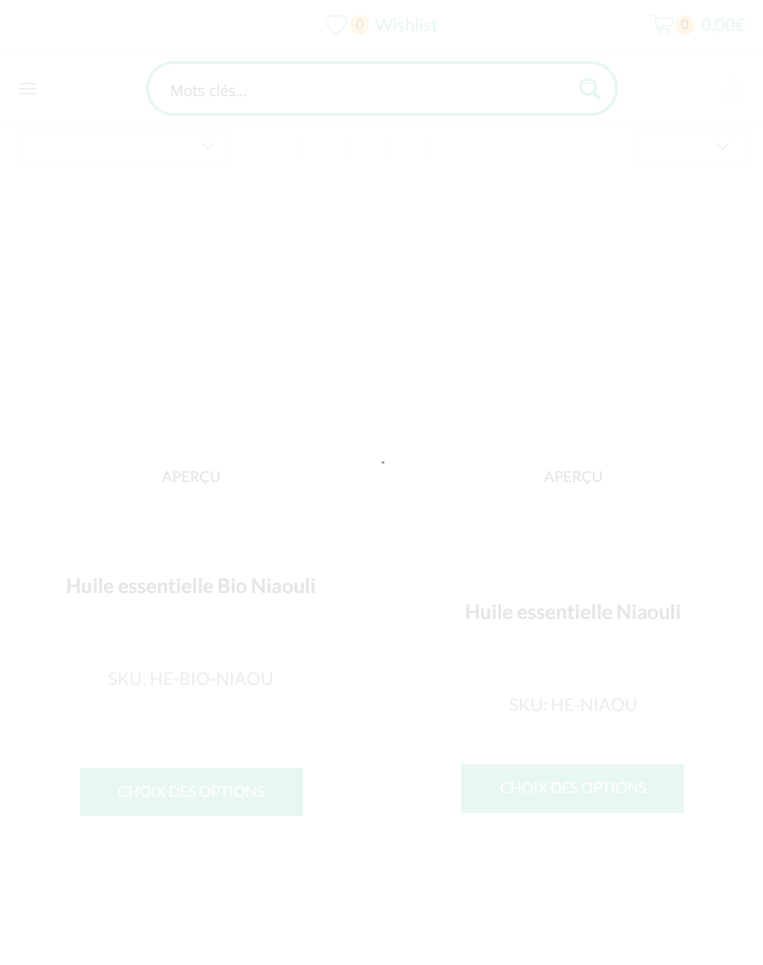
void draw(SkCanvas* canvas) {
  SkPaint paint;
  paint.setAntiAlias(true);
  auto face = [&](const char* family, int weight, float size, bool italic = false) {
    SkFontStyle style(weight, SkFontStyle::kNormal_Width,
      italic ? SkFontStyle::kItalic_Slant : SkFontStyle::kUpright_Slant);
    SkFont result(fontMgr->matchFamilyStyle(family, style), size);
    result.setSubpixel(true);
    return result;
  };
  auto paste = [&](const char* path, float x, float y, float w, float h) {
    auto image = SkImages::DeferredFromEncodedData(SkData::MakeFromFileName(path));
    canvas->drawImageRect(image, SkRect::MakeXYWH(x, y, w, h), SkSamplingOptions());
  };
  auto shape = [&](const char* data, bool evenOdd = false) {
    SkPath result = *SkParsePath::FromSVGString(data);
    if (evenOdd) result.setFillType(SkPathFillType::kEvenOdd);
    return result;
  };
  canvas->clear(0xffffffff);
  paint.setColor(0xfffcfcfc);
  canvas->drawRect(SkRect::MakeXYWH(0, 50, 763, 1), paint);
  paste("img/1.png", 325, 15, 23, 21);
  paint.setColor(0xfffef7ea);
  canvas->drawRoundRect(SkRect::MakeXYWH(350, 15, 19, 20), 9.5f, 9.5f, paint);
  paste("img/2.png", 651, 14, 23, 22);
  canvas->drawCircle(685, 25, 10, paint);
  paint.setColor(0xfffcfcfc);
  canvas->drawRect(SkRect::MakeXYWH(0, 126, 763, 1), paint);
  paste("img/3.png", 18, 83, 19, 12);
  paint.setStroke(true);
  paint.setStrokeWidth(3);
  paint.setColor(0xffe9f7f2);
  canvas->drawRoundRect(SkRect::MakeXYWH(147.5f, 62.5f, 469, 52), 26, 26, paint);
  paste("img/4.png", 579, 77, 22, 23);
  paste("img/5.png", 725, 79, 20, 21);
  paste("img/6.png", 202, 142, 13, 8);
  paint.setStrokeWidth(1);
  paint.setColor(0xfffcfcfc);
  canvas->drawRect(SkRect::MakeXYWH(19.5f, 128.5f, 211, 36), paint);
  paint.setStroke(false);
  {
    const struct { float x, y, w, h; SkColor color; } items[] = {
      {300, 135, 1, 23, 0xfffcfcfc},
      {344, 135, 1, 23, 0xfffcfcfc},
      {388, 135, 1, 23, 0xfffcfcfc},
      {431, 136, 1, 20, 0xfffcfcfc},
    };
    for (auto [x, y, w, h, color] : items) {
      paint.setColor(color);
      canvas->drawRect(SkRect::MakeXYWH(x, y, w, h), paint);
    }
  }
  paste("img/7.png", 716, 142, 13, 8);
  paint.setStroke(true);
  canvas->drawRect(SkRect::MakeXYWH(636.5f, 128.5f, 108, 36), paint);
  paint.setStroke(false);
  paint.setColor(0xffe9f7f2);
  canvas->drawRect(SkRect::MakeXYWH(80, 768, 223, 48), paint);
  canvas->drawRect(SkRect::MakeXYWH(461, 764, 223, 49), paint);
  paint.setStroke(true);
  paint.setStrokeWidth(2);
  paint.setStrokeCap(SkPaint::kRound_Cap);
  paint.setColor(0xff888888);
  canvas->drawPath(shape("M382.5 462.5H383.5"), paint);
  auto f0 = face("Lato", 400, 13);
  paint.setStroke(false);
  paint.setColor(0xffe6e6e6);
  canvas->drawString("0", 356, 29, f0, paint);
  auto f1 = face("Lato", 400, 17.5f);
  paint.setColor(0xffe9f7f2);
  canvas->drawString("Wishlist", 375, 31, f1, paint);
  paint.setColor(0xffe6e6e6);
  canvas->drawString("0", 681, 29, f0, paint);
  paint.setColor(0xffe9f7f2);
  canvas->drawString("0,00€", 701, 31, f1, paint);
  auto f2 = face("Open Sans", 400, 15);
  paint.setColor(0xffe6e6e6);
  canvas->drawString("Mots clés...", 170, 96, f2, paint);
  auto f3 = face("Lato", 400, 14.9f);
  canvas->drawString("APERÇU", 162, 482, f3, paint);
  auto f4 = face("Lato", 700, 20);
  canvas->drawString("Huile essentielle Bio Niaouli", 66, 593, f4, paint);
  paint.setColor(0xffeeeeee);
  canvas->drawString("SKU: HE-BIO-NIAOU", 108, 685, f1, paint);
  paint.setColor(0xffffffff);
  canvas->drawString("CHOIX DES OPTIONS", 118, 797, f3, paint);
  paint.setColor(0xffe6e6e6);
  canvas->drawString("APERÇU", 544, 482, f3, paint);
  canvas->drawString("Huile essentielle Niaouli", 465, 619, f4, paint);
  paint.setColor(0xffeeeeee);
  canvas->drawString("SKU: HE-NIAOU", 509, 711, f1, paint);
  paint.setColor(0xffffffff);
  canvas->drawString("CHOIX DES OPTIONS", 500, 793, f3, paint);
}
